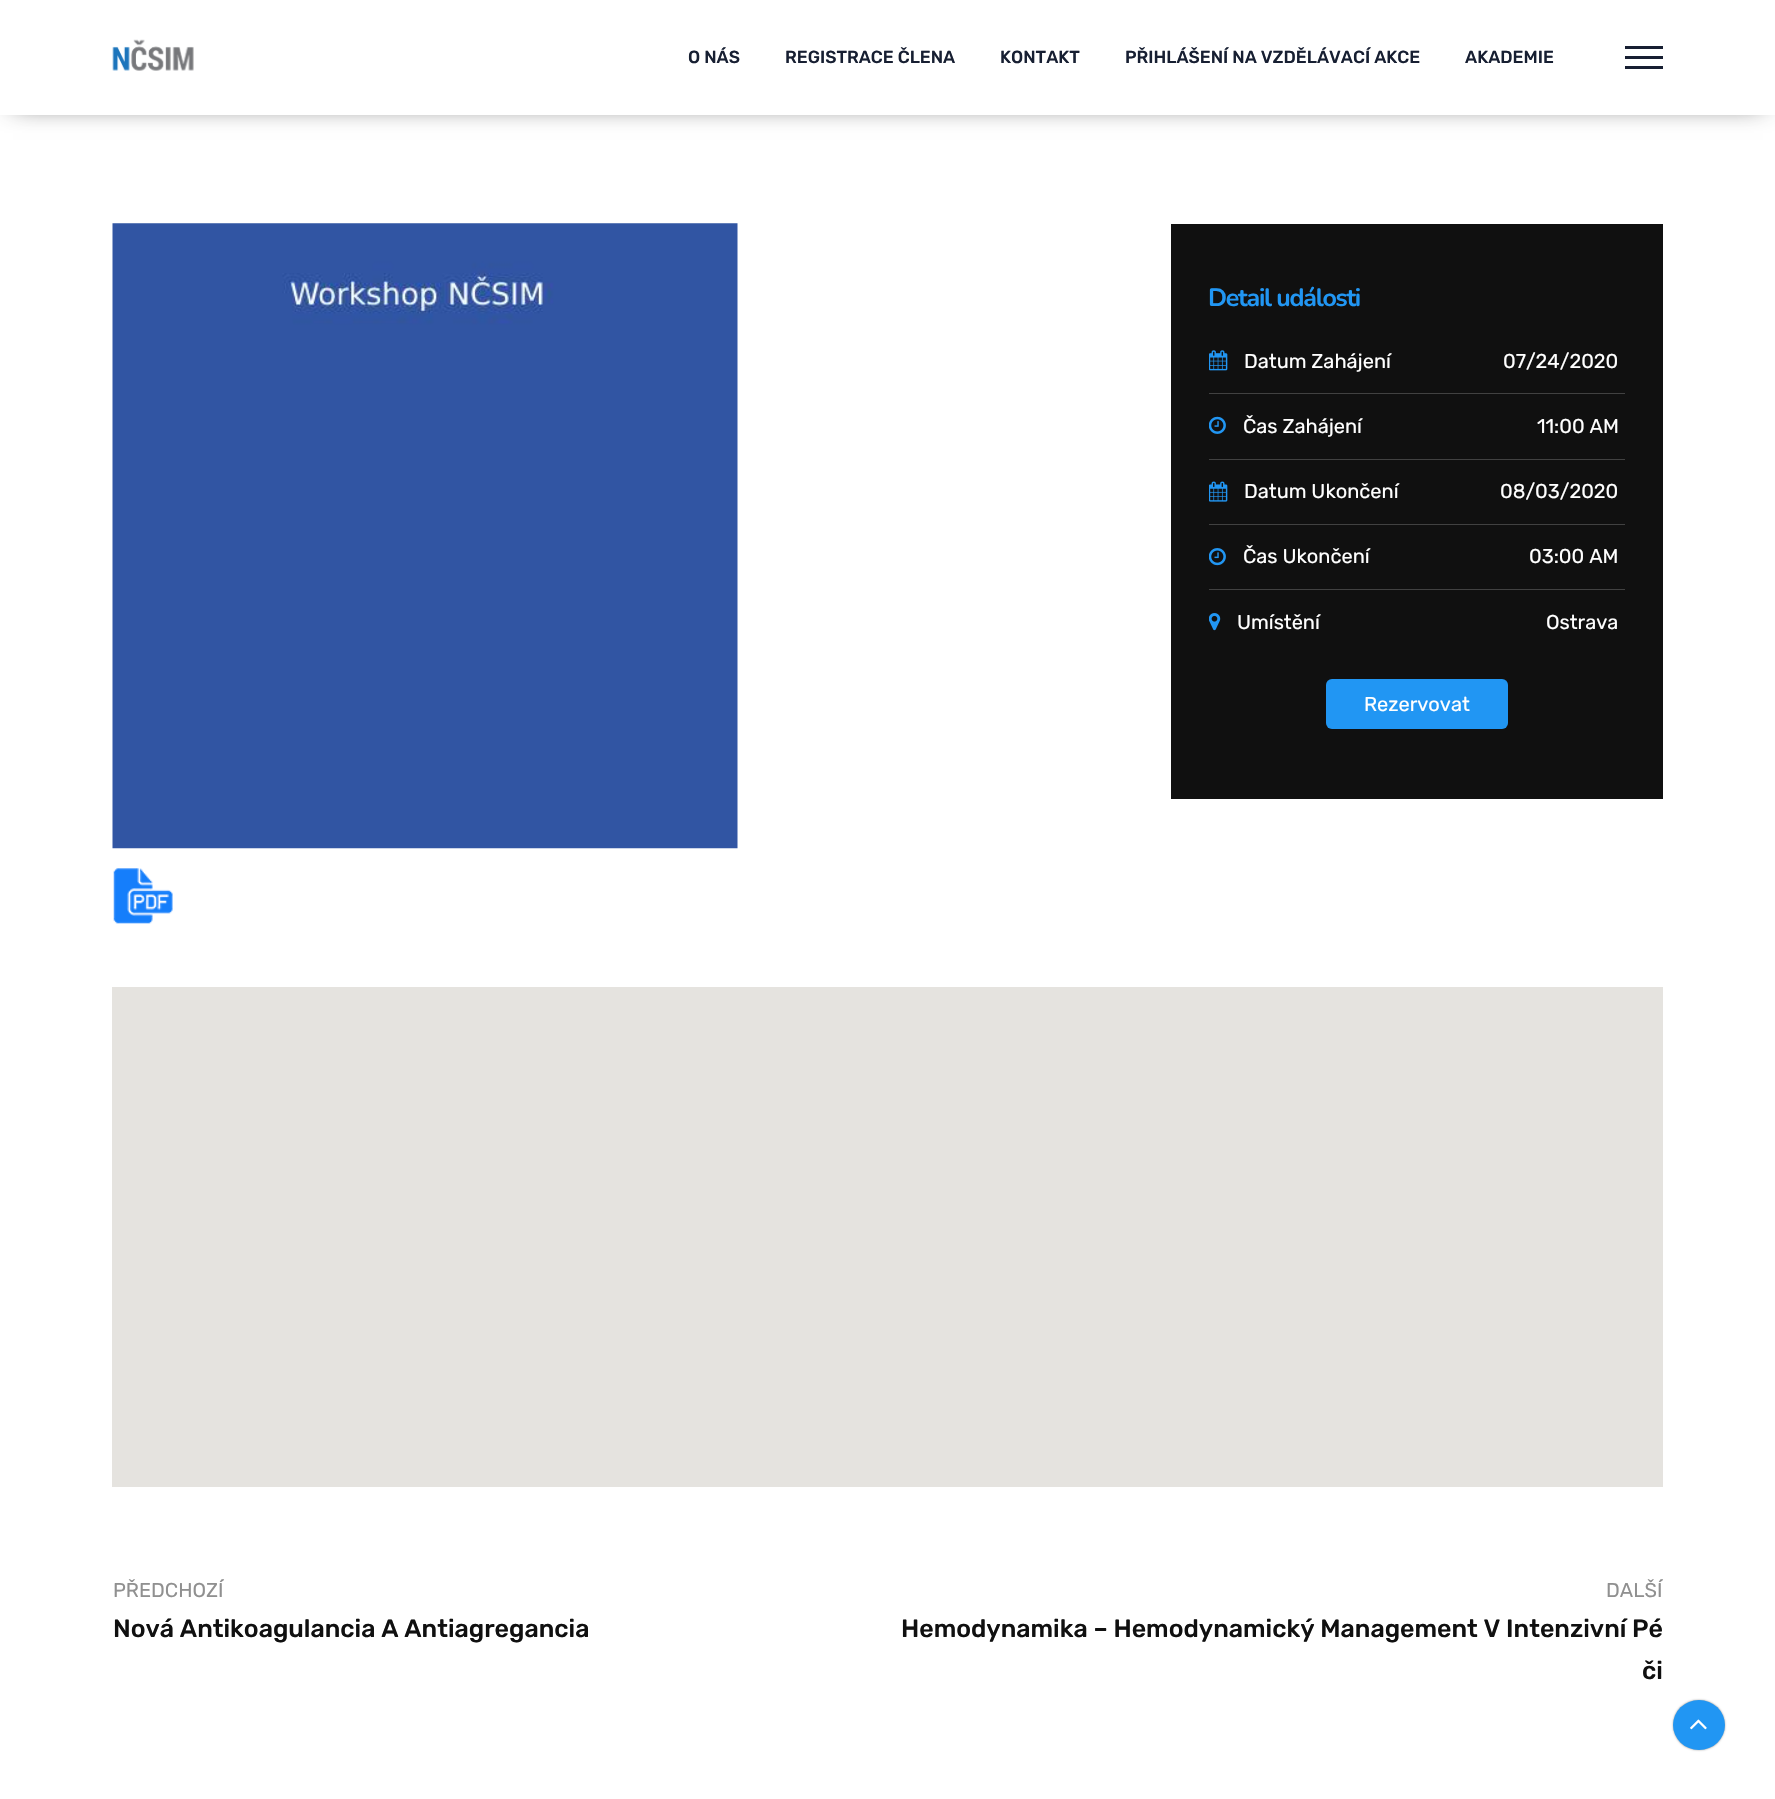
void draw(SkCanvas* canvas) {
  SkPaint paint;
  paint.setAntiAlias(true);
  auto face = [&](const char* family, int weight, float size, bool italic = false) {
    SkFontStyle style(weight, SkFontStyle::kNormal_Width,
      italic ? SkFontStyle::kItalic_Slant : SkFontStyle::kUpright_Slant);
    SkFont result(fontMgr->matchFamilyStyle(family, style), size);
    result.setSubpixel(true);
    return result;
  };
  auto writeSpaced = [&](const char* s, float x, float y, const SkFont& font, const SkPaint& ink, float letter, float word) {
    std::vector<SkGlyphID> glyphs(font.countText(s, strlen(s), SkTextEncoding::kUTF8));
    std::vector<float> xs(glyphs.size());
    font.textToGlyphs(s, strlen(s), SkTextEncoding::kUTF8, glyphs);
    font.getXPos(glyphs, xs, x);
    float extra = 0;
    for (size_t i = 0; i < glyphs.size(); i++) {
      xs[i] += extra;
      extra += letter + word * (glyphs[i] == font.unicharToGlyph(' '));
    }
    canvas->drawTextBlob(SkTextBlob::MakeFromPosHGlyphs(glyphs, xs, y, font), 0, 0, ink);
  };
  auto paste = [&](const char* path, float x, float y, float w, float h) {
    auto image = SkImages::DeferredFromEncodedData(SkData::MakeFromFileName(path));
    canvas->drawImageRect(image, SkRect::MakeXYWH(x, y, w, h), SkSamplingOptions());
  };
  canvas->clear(0xffffffff);
  paint.setColor(0xcc000000);
  paint.setMaskFilter(SkMaskFilter::MakeBlur(kNormal_SkBlurStyle, 12.5f));
  canvas->drawRect(SkRect::MakeXYWH(13, 13, 1750, 90), paint);
  paint.setMaskFilter(nullptr);
  paint.setColor(0xffffffff);
  canvas->drawRect(SkRect::MakeXYWH(0, 0, 1775, 115), paint);
  paste("img/1.png", 112, 39, 82, 32);
  {
    const struct { float x, y, w, h; SkColor color; } items[] = {
      {1625, 46, 38, 3, 0xff171f32},
      {1625, 56, 38, 3, 0xff171f32},
      {1625, 66, 38, 3, 0xff171f32},
    };
    for (auto [x, y, w, h, color] : items) {
      paint.setColor(color);
      canvas->drawRect(SkRect::MakeXYWH(x, y, w, h), paint);
    }
  }
  paste("img/2.png", 112, 223, 626, 626);
  paint.setColor(0xff101010);
  canvas->drawRect(SkRect::MakeXYWH(1171, 224, 492, 575), paint);
  paste("img/3.png", 1209, 350, 19, 21);
  paint.setColor(0xff414141);
  canvas->drawRect(SkRect::MakeXYWH(1209, 393, 416, 1), paint);
  paste("img/4.png", 1209, 416, 17, 18);
  canvas->drawRect(SkRect::MakeXYWH(1209, 459, 416, 1), paint);
  paste("img/5.png", 1209, 481, 19, 21);
  canvas->drawRect(SkRect::MakeXYWH(1209, 524, 416, 1), paint);
  paste("img/6.png", 1209, 548, 17, 18);
  canvas->drawRect(SkRect::MakeXYWH(1209, 589, 416, 1), paint);
  paste("img/7.png", 1209, 613, 12, 18);
  paint.setColor(0xff2196f3);
  canvas->drawRoundRect(SkRect::MakeXYWH(1326, 679, 182, 50), 6, 6, paint);
  paste("img/8.png", 113, 868, 60, 56);
  paint.setColor(0xffe5e3df);
  canvas->drawRect(SkRect::MakeXYWH(112, 987, 1551, 500), paint);
  paint.setColor(0x66000000);
  paint.setMaskFilter(SkMaskFilter::MakeBlur(kNormal_SkBlurStyle, 1));
  canvas->drawRoundRect(SkRect::MakeXYWH(1673, 1700, 52, 50), 25, 25, paint);
  paint.setMaskFilter(nullptr);
  paint.setColor(0xff2196f3);
  canvas->drawOval(SkRect::MakeXYWH(1673, 1700, 52, 50), paint);
  paste("img/9.png", 1690, 1719, 17, 11);
  auto f0 = face("Rubik", 500, 17.5f);
  paint.setColor(0xff171f32);
  {
    const struct { const char* s; float x, y; } items[] = {
      {"O NÁS", 688, 63},
      {"REGISTRACE ČLENA", 785, 63},
      {"KONTAKT", 1000, 63},
      {"PŘIHLÁŠENÍ NA VZDĚLÁVACÍ AKCE", 1125, 63},
      {"AKADEMIE", 1465, 63},
    };
    for (auto [s, x, y] : items) {
      canvas->drawString(s, x, y, f0, paint);
    }
  }
  auto f1 = face("Nunito", 700, 25);
  paint.setColor(0xff2196f3);
  writeSpaced("Detail události", 1208, 306, f1, paint, -1.25f, 0);
  auto f2 = face("Rubik", 400, 20);
  paint.setColor(0xffffffff);
  {
    const struct { const char* s; float x, y; } items[] = {
      {"Datum Zahájení", 1244, 368},
      {"07/24/2020", 1503, 368},
      {"Čas Zahájení", 1243, 433},
      {"11:00 AM", 1537, 433},
      {"Datum Ukončení", 1244, 498},
      {"08/03/2020", 1500, 498},
      {"Čas Ukončení", 1243, 563},
      {"03:00 AM", 1529, 563},
      {"Umístění", 1237, 629},
      {"Ostrava", 1546, 629},
      {"Rezervovat", 1364, 711},
    };
    for (auto [s, x, y] : items) {
      canvas->drawString(s, x, y, f2, paint);
    }
  }
  paint.setColor(0xff909090);
  canvas->drawString("PŘEDCHOZÍ", 113, 1597, f2, paint);
  auto f3 = face("Rubik", 500, 25);
  paint.setColor(0xff101010);
  canvas->drawString("Nová Antikoagulancia A Antiagregancia", 113, 1637, f3, paint);
  paint.setColor(0xff909090);
  canvas->drawString("DALŠÍ", 1606, 1597, f2, paint);
  paint.setColor(0xff101010);
  canvas->drawString("Hemodynamika – Hemodynamický Management V Intenzivní Pé", 901, 1637, f3, paint);
  canvas->drawString("či", 1642, 1679, f3, paint);
}
